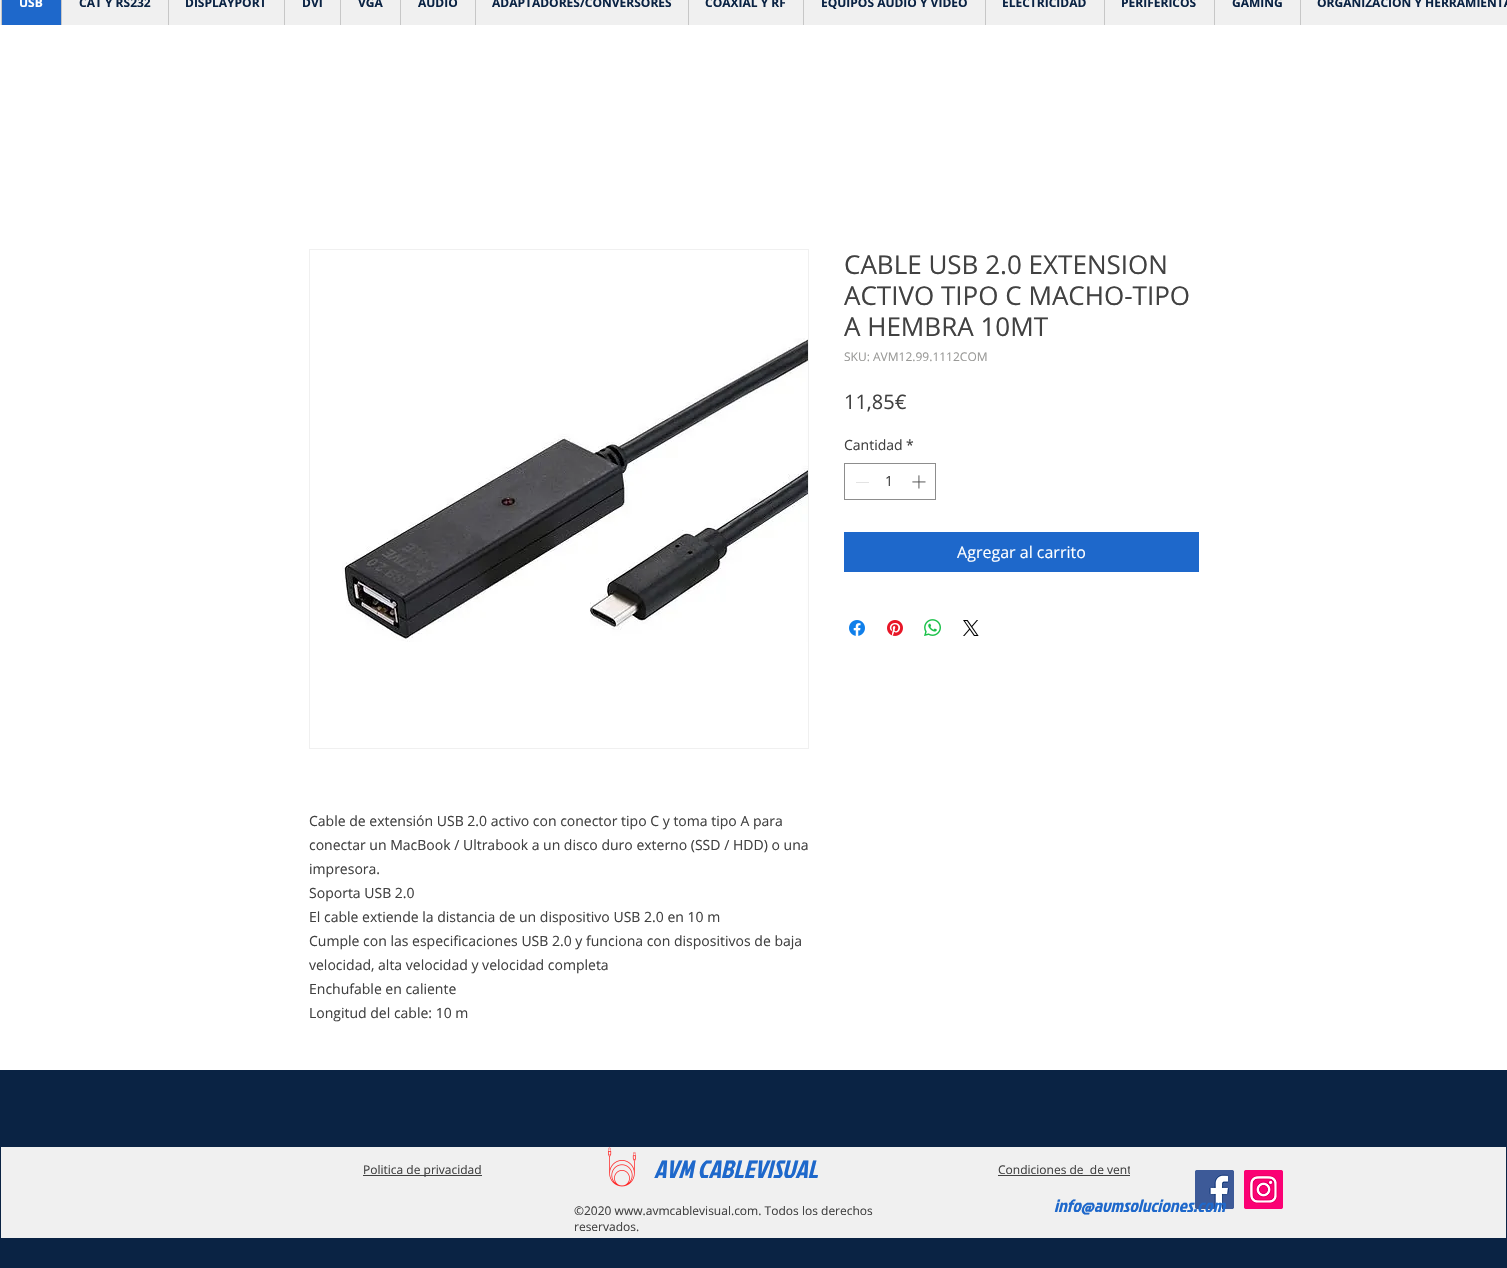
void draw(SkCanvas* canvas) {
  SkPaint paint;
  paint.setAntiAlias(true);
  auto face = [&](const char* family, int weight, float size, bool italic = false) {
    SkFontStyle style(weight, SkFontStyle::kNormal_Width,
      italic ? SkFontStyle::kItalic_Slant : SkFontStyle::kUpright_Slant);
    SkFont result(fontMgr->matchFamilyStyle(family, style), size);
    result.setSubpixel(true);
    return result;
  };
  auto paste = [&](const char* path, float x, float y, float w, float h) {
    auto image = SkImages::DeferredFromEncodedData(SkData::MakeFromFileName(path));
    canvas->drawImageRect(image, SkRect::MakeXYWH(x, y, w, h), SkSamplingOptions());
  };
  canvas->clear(0xffffffff);
  {
    const struct { float x, y, w, h; SkColor color; } items[] = {
      {0, 0, 1507, 25, 0xfff0f0f0},
      {2, 0, 59, 25, 0xff1e68cb},
      {1, 0, 1, 25, 0xffc7c7c7},
      {61, 0, 1, 25, 0xffc7c7c7},
      {168, 0, 1, 25, 0xffc7c7c7},
      {284, 0, 1, 25, 0xffc7c7c7},
      {340, 0, 1, 25, 0xffc7c7c7},
      {400, 0, 1, 25, 0xffc7c7c7},
      {475, 0, 1, 25, 0xffc7c7c7},
      {688, 0, 1, 25, 0xffc7c7c7},
      {803, 0, 1, 25, 0xffc7c7c7},
      {985, 0, 1, 25, 0xffc7c7c7},
      {1104, 0, 1, 25, 0xffc7c7c7},
      {1214, 0, 1, 25, 0xffc7c7c7},
      {1300, 0, 1, 25, 0xffc7c7c7},
    };
    for (auto [x, y, w, h, color] : items) {
      paint.setColor(color);
      canvas->drawRect(SkRect::MakeXYWH(x, y, w, h), paint);
    }
  }
  paint.setStroke(true);
  paint.setStrokeWidth(1);
  paint.setColor(0xff8d8d8d);
  canvas->drawRect(SkRect::MakeXYWH(844.5f, 463.5f, 91, 36), paint);
  paint.setStroke(false);
  paint.setColor(0xffe3e3e3);
  canvas->drawRect(SkRect::MakeXYWH(856, 482, 13, 1), paint);
  paste("img/1.png", 912, 475, 14, 14);
  paint.setColor(0xff1e68cb);
  canvas->drawRect(SkRect::MakeXYWH(844, 532, 355, 40), paint);
  paste("img/2.png", 849, 620, 16, 16);
  paste("img/3.png", 887, 620, 16, 16);
  paste("img/4.png", 924, 619, 17, 17);
  paste("img/5.png", 963, 620, 16, 16);
  paint.setStroke(true);
  paint.setColor(0xfff0f0f0);
  canvas->drawRect(SkRect::MakeXYWH(309.5f, 249.5f, 499, 499), paint);
  paste("img/6.png", 342, 338, 466, 304);
  paint.setStroke(false);
  {
    const struct { float x, y, w, h; SkColor color; } items[] = {
      {0, 1070, 1507, 198, 0xff0a2344},
      {1, 1147, 1129, 91, 0xfff0f0f0},
      {363, 1175, 119, 1, 0xff414141},
    };
    for (auto [x, y, w, h, color] : items) {
      paint.setColor(color);
      canvas->drawRect(SkRect::MakeXYWH(x, y, w, h), paint);
    }
  }
  paste("img/9.png", 608, 1147, 28, 40);
  canvas->drawRect(SkRect::MakeXYWH(998, 1175, 132, 1), paint);
  auto f0 = face("Open Sans", 700, 12);
  paint.setColor(0xffffffff);
  canvas->drawString("USB", 19, 7, f0, paint);
  paint.setColor(0xff0a2344);
  {
    const struct { const char* s; float x, y; } items[] = {
      {"CAT Y RS232", 79, 7},
      {"DISPLAYPORT", 185, 7},
      {"DVI", 302, 7},
      {"VGA", 358, 7},
      {"AUDIO", 418, 7},
      {"ADAPTADORES/CONVERSORES", 492, 7},
      {"COAXIAL Y RF", 705, 7},
      {"EQUIPOS AUDIO Y VIDEO", 821, 7},
      {"ELECTRICIDAD", 1002, 7},
      {"PERIFERICOS", 1121, 7},
      {"GAMING", 1232, 7},
      {"ORGANIZACION Y HERRAMIENTA", 1317, 7},
    };
    for (auto [s, x, y] : items) {
      canvas->drawString(s, x, y, f0, paint);
    }
  }
  auto f1 = face("Open Sans", 400, 26);
  paint.setColor(0xff414141);
  {
    const struct { const char* s; float x, y; } items[] = {
      {"CABLE USB 2.0 EXTENSION", 844, 274},
      {"ACTIVO TIPO C MACHO-TIPO", 844, 305},
      {"A HEMBRA 10MT", 844, 336},
    };
    for (auto [s, x, y] : items) {
      canvas->drawString(s, x, y, f1, paint);
    }
  }
  auto f2 = face("Open Sans", 400, 12);
  paint.setColor(0xff999997);
  canvas->drawString("SKU: AVM12.99.1112COM", 844, 361, f2, paint);
  auto f3 = face("Open Sans", 400, 20);
  paint.setColor(0xff414141);
  canvas->drawString("11,85€", 844, 409, f3, paint);
  auto f4 = face("Open Sans", 400, 14);
  {
    const struct { const char* s; float x, y; } items[] = {
      {"Cantidad", 844, 450},
      {"*", 906, 450},
      {"1", 885, 486},
    };
    for (auto [s, x, y] : items) {
      canvas->drawString(s, x, y, f4, paint);
    }
  }
  auto f5 = face("Open Sans", 400, 16);
  paint.setColor(0xffffffff);
  canvas->drawString("Agregar al carrito", 957, 558, f5, paint);
  paint.setColor(0xff414141);
  {
    const struct { const char* s; float x, y; } items[] = {
      {"Cable de extensión USB 2.0 activo con conector tipo C y toma tipo A para", 309, 826},
      {"conectar un MacBook / Ultrabook a un disco duro externo (SSD / HDD) o una", 309, 850},
      {"impresora.", 309, 874},
      {"Soporta USB 2.0", 309, 898},
      {"El cable extiende la distancia de un dispositivo USB 2.0 en 10 m", 309, 922},
      {"Cumple con las especificaciones USB 2.0 y funciona con dispositivos de baja", 309, 946},
      {"velocidad, alta velocidad y velocidad completa", 309, 970},
      {"Enchufable en caliente", 309, 994},
      {"Longitud del cable: 10 m", 309, 1018},
    };
    for (auto [s, x, y] : items) {
      canvas->drawString(s, x, y, f4, paint);
    }
  }
  auto f6 = face("Jockey One", 400, 25, true);
  paint.setColor(0xff1e68cb);
  canvas->drawString("AVM CABLEVISUAL", 654, 1178, f6, paint);
  paint.setColor(0xff414141);
  canvas->drawString("Politica de privacidad", 363, 1174, f2, paint);
  canvas->drawString("Condiciones de  de vent", 998, 1174, f2, paint);
  paint.setColor(0xfff0f0f0);
  canvas->drawRect(SkRect::MakeXYWH(1130, 1147, 376, 91), paint);
  paste("img/8.png", 1244, 1170, 39, 39);
  paste("img/7.png", 1195, 1170, 39, 39);
  paint.setColor(0xff414141);
  canvas->drawString("©2020 www.avmcablevisual.com. Todos los derechos", 574, 1215, f2, paint);
  canvas->drawString("reservados.", 574, 1231, f2, paint);
  auto f7 = face("Jockey One", 400, 18, true);
  paint.setColor(0xff1e68cb);
  canvas->drawString("info@avmsoluciones.com", 1054, 1212, f7, paint);
}
